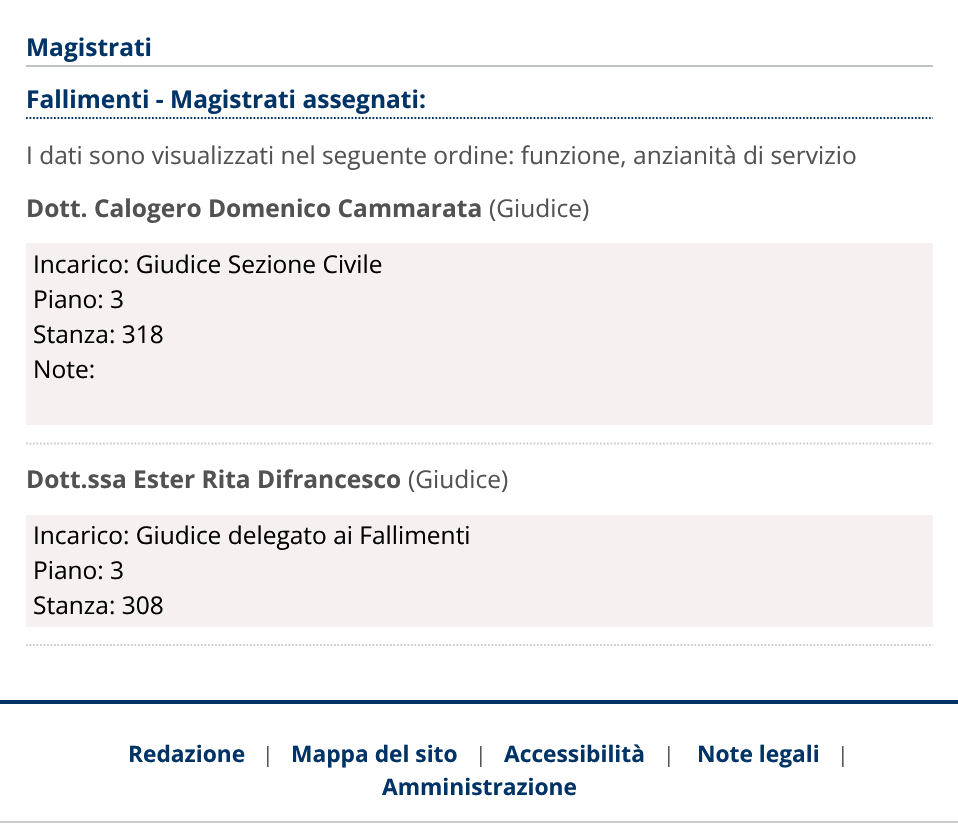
void draw(SkCanvas* canvas) {
  SkPaint paint;
  paint.setAntiAlias(true);
  auto face = [&](const char* family, int weight, float size, bool italic = false) {
    SkFontStyle style(weight, SkFontStyle::kNormal_Width,
      italic ? SkFontStyle::kItalic_Slant : SkFontStyle::kUpright_Slant);
    SkFont result(fontMgr->matchFamilyStyle(family, style), size);
    result.setSubpixel(true);
    return result;
  };
  auto shape = [&](const char* data, bool evenOdd = false) {
    SkPath result = *SkParsePath::FromSVGString(data);
    if (evenOdd) result.setFillType(SkPathFillType::kEvenOdd);
    return result;
  };
  canvas->clear(0xffffffff);
  paint.setColor(0xffbfc3c3);
  canvas->drawRect(SkRect::MakeXYWH(26, 65, 907, 2), paint);
  paint.setStroke(true);
  paint.setStrokeWidth(1.8f);
  paint.setColor(0xff003366);
  paint.setPathEffect(SkDashPathEffect::Make({{1.75f, 1.75f}}, 0));
  canvas->drawPath(shape("M26 118H933"), paint);
  paint.setPathEffect(nullptr);
  paint.setColor(0xffcccccc);
  paint.setPathEffect(SkDashPathEffect::Make({{1.75f, 1.75f}}, 0));
  canvas->drawPath(shape("M26 443.5H933"), paint);
  paint.setPathEffect(nullptr);
  paint.setStroke(false);
  paint.setColor(0xfff6f0f0);
  canvas->drawRect(SkRect::MakeXYWH(26, 243, 907, 182), paint);
  paint.setStroke(true);
  paint.setColor(0xffcccccc);
  paint.setPathEffect(SkDashPathEffect::Make({{1.75f, 1.75f}}, 0));
  canvas->drawPath(shape("M26 645H933"), paint);
  paint.setPathEffect(nullptr);
  paint.setStroke(false);
  {
    const struct { float x, y, w, h; SkColor color; } items[] = {
      {26, 515, 907, 112, 0xfff6f0f0},
      {0, 700, 958, 4, 0xff003366},
      {0, 821, 958, 2, 0xffcccccc},
    };
    for (auto [x, y, w, h, color] : items) {
      paint.setColor(color);
      canvas->drawRect(SkRect::MakeXYWH(x, y, w, h), paint);
    }
  }
  auto f0 = face("Open Sans", 700, 24.5f);
  paint.setColor(0xff003366);
  canvas->drawString("Magistrati", 26, 56, f0, paint);
  canvas->drawString("Fallimenti - Magistrati assegnati:", 26, 108, f0, paint);
  auto f1 = face("Open Sans", 400, 24.5f);
  paint.setColor(0xff525252);
  canvas->drawString("I dati sono visualizzati nel seguente ordine: funzione, anzianità di servizio", 26, 164, f1, paint);
  canvas->drawString("Dott. Calogero Domenico Cammarata", 26, 217, f0, paint);
  canvas->drawString("(Giudice)", 489, 217, f1, paint);
  paint.setColor(0xff000000);
  {
    const struct { const char* s; float x, y; } items[] = {
      {"Incarico: Giudice Sezione Civile", 33, 273},
      {"Piano: 3", 33, 308},
      {"Stanza: 318", 33, 343},
      {"Note:", 33, 378},
    };
    for (auto [s, x, y] : items) {
      canvas->drawString(s, x, y, f1, paint);
    }
  }
  paint.setColor(0xff525252);
  canvas->drawString("Dott.ssa Ester Rita Difrancesco", 26, 488, f0, paint);
  canvas->drawString("(Giudice)", 408, 488, f1, paint);
  paint.setColor(0xff000000);
  {
    const struct { const char* s; float x, y; } items[] = {
      {"Incarico: Giudice delegato ai Fallimenti", 33, 544},
      {"Piano: 3", 33, 579},
      {"Stanza: 308", 33, 614},
    };
    for (auto [s, x, y] : items) {
      canvas->drawString(s, x, y, f1, paint);
    }
  }
  auto f2 = face("Open Sans", 700, 22.75f);
  paint.setColor(0xff003366);
  canvas->drawString("Redazione", 128, 762, f2, paint);
  auto f3 = face("Open Sans", 400, 21);
  paint.setColor(0xff525252);
  canvas->drawString("|", 262, 762, f3, paint);
  paint.setColor(0xff003366);
  canvas->drawString("Mappa del sito", 291, 762, f2, paint);
  paint.setColor(0xff525252);
  canvas->drawString("|", 475, 762, f3, paint);
  paint.setColor(0xff003366);
  canvas->drawString("Accessibilità", 504, 762, f2, paint);
  paint.setColor(0xff525252);
  canvas->drawString("|", 663, 762, f3, paint);
  paint.setColor(0xff003366);
  canvas->drawString("Note legali", 697, 762, f2, paint);
  paint.setColor(0xff525252);
  canvas->drawString("|", 837, 762, f3, paint);
  paint.setColor(0xff003366);
  canvas->drawString("Amministrazione", 382, 795, f2, paint);
}
